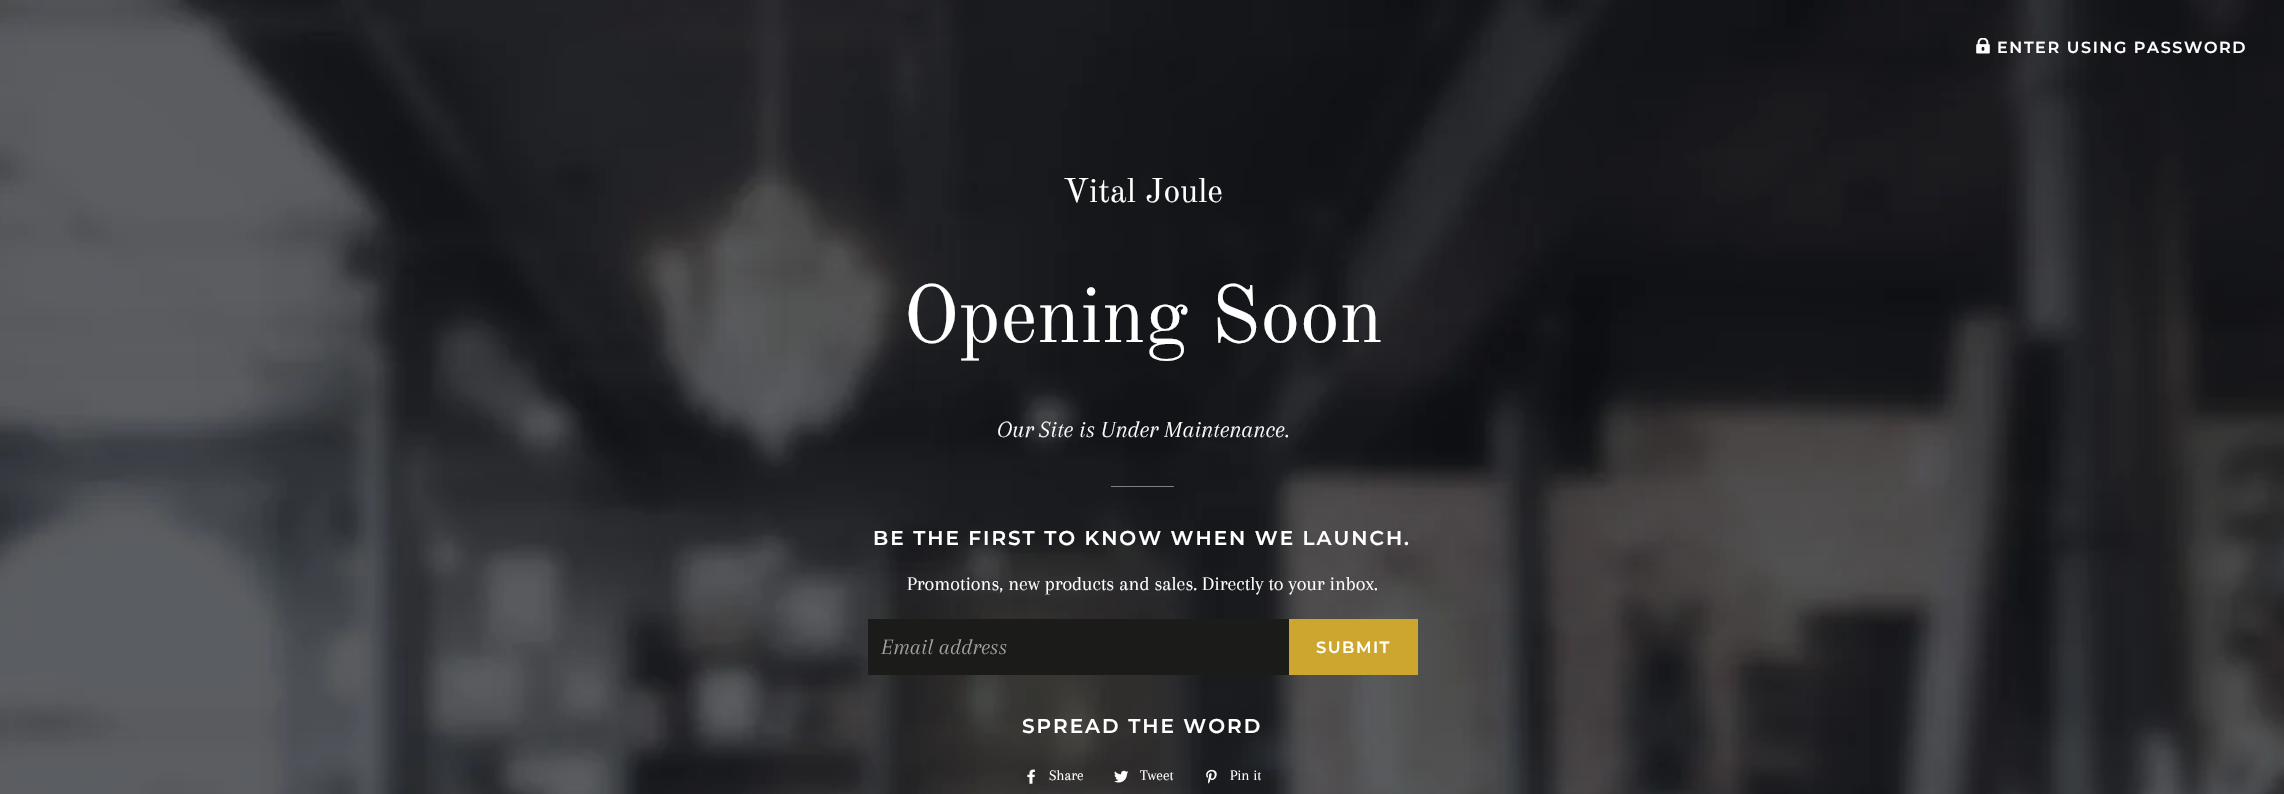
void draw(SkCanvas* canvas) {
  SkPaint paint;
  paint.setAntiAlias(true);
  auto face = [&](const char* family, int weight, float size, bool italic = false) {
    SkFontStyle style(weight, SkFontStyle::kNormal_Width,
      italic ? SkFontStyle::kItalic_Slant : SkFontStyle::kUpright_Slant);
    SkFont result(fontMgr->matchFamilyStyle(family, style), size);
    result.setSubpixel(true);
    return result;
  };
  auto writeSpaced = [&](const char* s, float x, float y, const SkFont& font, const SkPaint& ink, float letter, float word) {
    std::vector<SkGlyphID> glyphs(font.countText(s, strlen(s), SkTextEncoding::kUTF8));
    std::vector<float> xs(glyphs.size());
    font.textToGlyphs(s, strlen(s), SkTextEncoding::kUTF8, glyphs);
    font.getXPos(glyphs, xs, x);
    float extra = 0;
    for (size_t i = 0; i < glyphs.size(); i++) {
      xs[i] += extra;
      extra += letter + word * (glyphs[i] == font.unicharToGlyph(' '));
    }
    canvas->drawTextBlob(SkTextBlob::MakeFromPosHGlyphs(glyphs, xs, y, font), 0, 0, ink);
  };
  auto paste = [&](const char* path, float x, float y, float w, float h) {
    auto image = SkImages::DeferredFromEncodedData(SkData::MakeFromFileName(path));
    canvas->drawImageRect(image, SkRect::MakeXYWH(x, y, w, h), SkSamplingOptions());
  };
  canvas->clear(0xffffffff);
  paste("img/1.png", 0, 0, 2284, 794);
  paste("img/2.png", 1976, 38, 14, 16);
  {
    const struct { float x, y, w, h; SkColor color; } items[] = {
      {1111, 486, 63, 1, 0xff808080},
      {868, 619, 421, 56, 0xff1b1b1a},
      {1289, 619, 129, 56, 0xffcca62e},
    };
    for (auto [x, y, w, h, color] : items) {
      paint.setColor(color);
      canvas->drawRect(SkRect::MakeXYWH(x, y, w, h), paint);
    }
  }
  paste("img/3.png", 1027, 769, 8, 15);
  paste("img/4.png", 1114, 770, 15, 13);
  paste("img/5.png", 1206, 769, 11, 15);
  auto f0 = face("Montserrat", 600, 16);
  paint.setColor(0xffffffff);
  writeSpaced("ENTER USING PASSWORD", 1997, 53, f0, paint, 1.6f, 0);
  auto f1 = face("Old Standard TT", 400, 33.75f);
  canvas->drawString("Vital Joule", 1063, 202, f1, paint);
  auto f2 = face("Old Standard TT", 400, 80);
  canvas->drawString("Opening Soon", 903, 342, f2, paint);
  auto f3 = face("Arapey", 400, 24, true);
  canvas->drawString("Our Site is Under Maintenance.", 997, 437, f3, paint);
  auto f4 = face("Montserrat", 600, 20);
  writeSpaced("BE THE FIRST TO KNOW WHEN WE LAUNCH.", 873, 545, f4, paint, 2, 0);
  auto f5 = face("Arapey", 400, 20);
  canvas->drawString("Promotions, new products and sales. Directly to your inbox.", 907, 590, f5, paint);
  auto f6 = face("Arapey", 400, 22.5f, true);
  paint.setColor(0xffa4a4a3);
  canvas->drawString("Email address", 881, 654, f6, paint);
  auto f7 = face("Montserrat", 600, 16.25f);
  paint.setColor(0xffffffff);
  writeSpaced("SUBMIT", 1316, 653, f7, paint, 1.5f, 0);
  writeSpaced("SPREAD THE WORD", 1022, 733, f4, paint, 2, 0);
  auto f8 = face("Arapey", 400, 15);
  {
    const struct { const char* s; float x, y; } items[] = {
      {"Share", 1049, 780},
      {"Tweet", 1140, 780},
      {"Pin it", 1230, 780},
    };
    for (auto [s, x, y] : items) {
      canvas->drawString(s, x, y, f8, paint);
    }
  }
}
